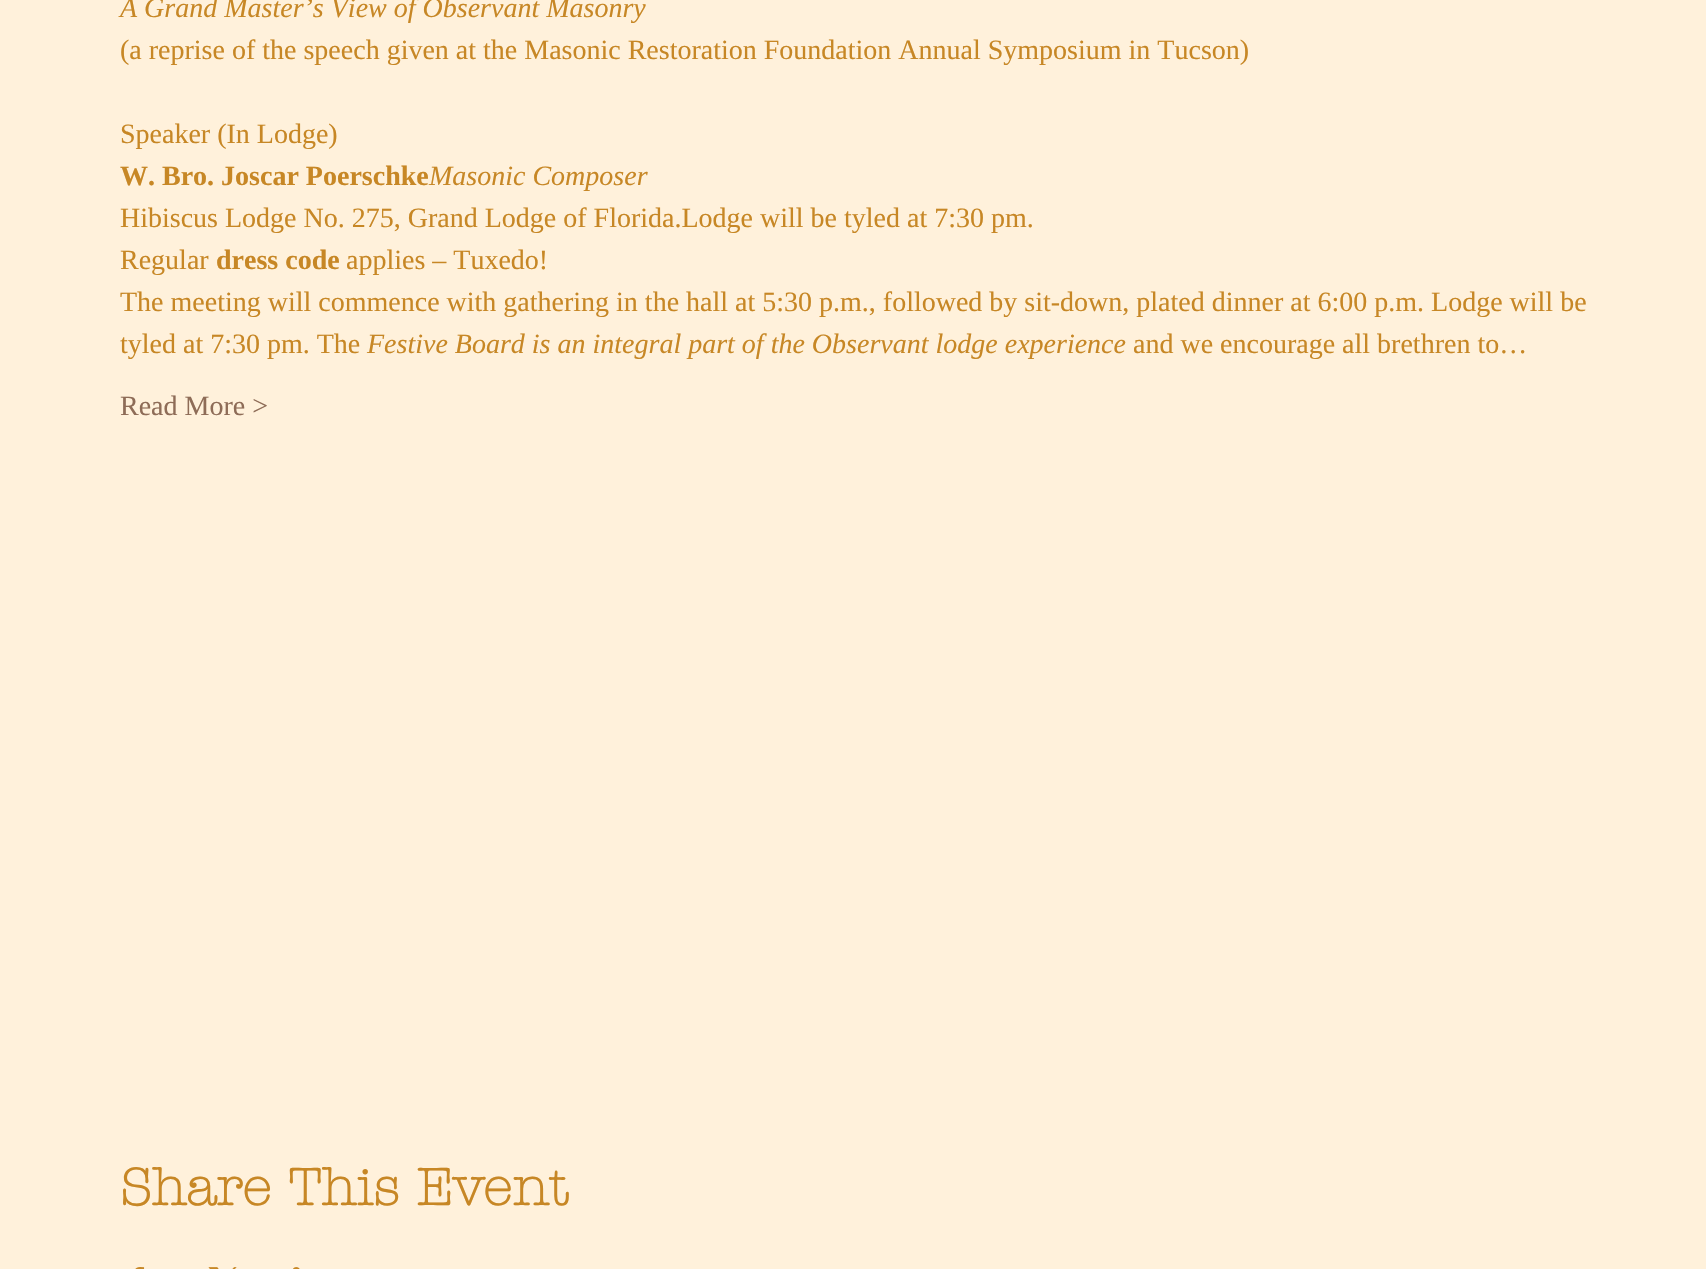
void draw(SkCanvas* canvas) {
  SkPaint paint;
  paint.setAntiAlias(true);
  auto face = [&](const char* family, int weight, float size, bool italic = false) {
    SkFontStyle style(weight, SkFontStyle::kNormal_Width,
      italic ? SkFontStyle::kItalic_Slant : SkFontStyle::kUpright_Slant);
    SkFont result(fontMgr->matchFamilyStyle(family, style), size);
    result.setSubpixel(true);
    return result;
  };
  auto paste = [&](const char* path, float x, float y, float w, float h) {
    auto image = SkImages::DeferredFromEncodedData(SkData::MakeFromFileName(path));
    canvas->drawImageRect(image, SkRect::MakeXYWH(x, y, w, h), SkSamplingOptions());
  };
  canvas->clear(0xfffff1db);
  paste("img/1.png", 135, 1267, 10, 2);
  paste("img/2.png", 208, 1267, 29, 2);
  paste("img/3.png", 293, 1267, 7, 2);
  auto f0 = face("Liberation Serif", 400, 28, true);
  paint.setColor(0xffc78725);
  canvas->drawString("A Grand Master’s View of Observant Masonry", 120, 17, f0, paint);
  auto f1 = face("Liberation Serif", 400, 28);
  canvas->drawString("(a reprise of the speech given at the Masonic Restoration Foundation Annual Symposium in Tucson)", 120, 59, f1, paint);
  canvas->drawString("Speaker (In Lodge)", 120, 143, f1, paint);
  auto f2 = face("Liberation Serif", 700, 28);
  canvas->drawString("W. Bro. Joscar Poerschke", 120, 185, f2, paint);
  canvas->drawString("Masonic Composer", 429, 185, f0, paint);
  canvas->drawString("Hibiscus Lodge No. 275, Grand Lodge of Florida.Lodge will be tyled at 7:30 pm.", 120, 227, f1, paint);
  canvas->drawString("Regular", 120, 269, f1, paint);
  canvas->drawString("dress code", 216, 269, f2, paint);
  {
    const struct { const char* s; float x, y; } items[] = {
      {"applies – Tuxedo!", 346, 269},
      {"The meeting will commence with gathering in the hall at 5:30 p.m., followed by sit-down, plated dinner at 6:00 p.m. Lodge will be", 120, 311},
      {"tyled at 7:30 pm. The", 120, 353},
    };
    for (auto [s, x, y] : items) {
      canvas->drawString(s, x, y, f1, paint);
    }
  }
  canvas->drawString("Festive Board is an integral part of the Observant lodge experience", 367, 353, f0, paint);
  canvas->drawString("and we encourage all brethren to…", 1133, 353, f1, paint);
  paint.setColor(0xff8e6c57);
  canvas->drawString("Read More >", 120, 415, f1, paint);
  auto f3 = face("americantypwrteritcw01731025", 700, 52.5f);
  paint.setColor(0xffc78725);
  canvas->drawString("Share This Event", 120, 1205, f3, paint);
}
